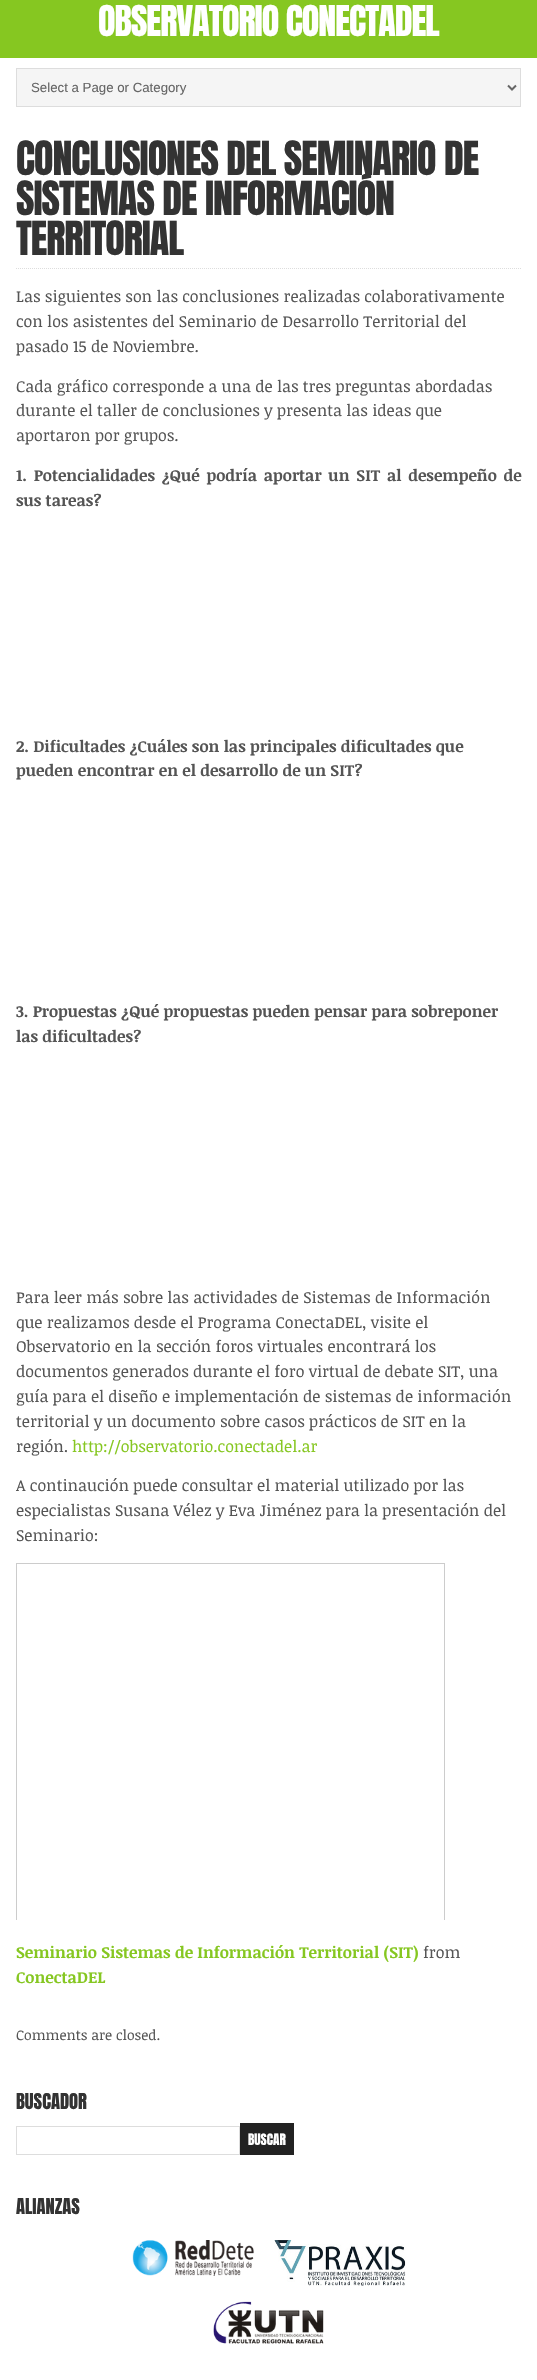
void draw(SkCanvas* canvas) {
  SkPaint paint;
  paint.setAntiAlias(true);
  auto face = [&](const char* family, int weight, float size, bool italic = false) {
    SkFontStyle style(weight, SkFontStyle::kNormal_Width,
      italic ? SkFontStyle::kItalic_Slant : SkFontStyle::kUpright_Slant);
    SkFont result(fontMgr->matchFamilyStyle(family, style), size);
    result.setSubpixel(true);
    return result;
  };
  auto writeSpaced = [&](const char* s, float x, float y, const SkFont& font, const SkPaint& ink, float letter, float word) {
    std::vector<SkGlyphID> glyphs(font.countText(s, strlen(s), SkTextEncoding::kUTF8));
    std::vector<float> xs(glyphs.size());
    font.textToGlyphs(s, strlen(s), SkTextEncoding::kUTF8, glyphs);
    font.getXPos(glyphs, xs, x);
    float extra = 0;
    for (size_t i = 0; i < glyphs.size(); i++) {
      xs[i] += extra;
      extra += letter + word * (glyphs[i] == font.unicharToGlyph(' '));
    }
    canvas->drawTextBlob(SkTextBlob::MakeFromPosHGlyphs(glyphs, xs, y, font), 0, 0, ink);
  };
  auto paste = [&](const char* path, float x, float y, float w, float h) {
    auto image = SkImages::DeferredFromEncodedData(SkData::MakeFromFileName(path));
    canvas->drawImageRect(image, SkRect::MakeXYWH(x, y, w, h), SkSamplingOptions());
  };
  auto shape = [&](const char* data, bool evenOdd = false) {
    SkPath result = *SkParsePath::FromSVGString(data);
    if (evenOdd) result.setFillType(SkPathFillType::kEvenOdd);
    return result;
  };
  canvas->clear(0xff86c721);
  paint.setColor(0xffffffff);
  canvas->drawRect(SkRect::MakeXYWH(0, 58, 537, 2322), paint);
  paint.setColor(0xfff5f5f5);
  canvas->drawRect(SkRect::MakeXYWH(16.5f, 68.5f, 504, 38), paint);
  paint.setStroke(true);
  paint.setStrokeWidth(1);
  paint.setColor(0xffdddddd);
  canvas->drawRect(SkRect::MakeXYWH(16.5f, 68.5f, 504, 38), paint);
  paint.setStrokeWidth(2);
  paint.setColor(0xff666666);
  canvas->drawPath(shape("M508 85.5L512 89.5L516 85.5"), paint);
  paint.setStrokeWidth(1);
  paint.setColor(0xffdddddd);
  paint.setPathEffect(SkDashPathEffect::Make({{1, 1}}, 0));
  canvas->drawPath(shape("M16 268.5H521"), paint);
  paint.setPathEffect(nullptr);
  paint.setStroke(false);
  {
    const struct { float x, y, w, h; SkColor color; } items[] = {
      {16, 1563, 429, 1, 0xffcccccc},
      {16, 1563, 1, 357, 0xffcccccc},
      {444, 1563, 1, 357, 0xffcccccc},
    };
    for (auto [x, y, w, h, color] : items) {
      paint.setColor(color);
      canvas->drawRect(SkRect::MakeXYWH(x, y, w, h), paint);
    }
  }
  paint.setStroke(true);
  paint.setColor(0xffdddddd);
  canvas->drawRect(SkRect::MakeXYWH(16.5f, 2126.5f, 223, 28), paint);
  paint.setStroke(false);
  paint.setColor(0xff222222);
  canvas->drawRect(SkRect::MakeXYWH(240, 2123, 54, 32), paint);
  paste("img/1.png", 132, 2240, 274, 104);
  auto f0 = face("Anton", 400, 36);
  paint.setColor(0xffffffff);
  writeSpaced("OBSERVATORIO CONECTADEL", 98, 36, f0, paint, -1, 0);
  auto f1 = face("Liberation Sans", 400, 13.25f);
  paint.setColor(0xff666666);
  canvas->drawString("Select a Page or Category", 31, 92, f1, paint);
  auto f2 = face("Anton", 400, 40);
  paint.setColor(0xff333333);
  {
    const struct { const char* s; float x, y; } items[] = {
      {"CONCLUSIONES DEL SEMINARIO DE", 16, 175},
      {"SISTEMAS DE INFORMACIÓN", 16, 215},
      {"TERRITORIAL", 16, 255},
    };
    for (auto [s, x, y] : items) {
      writeSpaced(s, x, y, f2, paint, -1, 0);
    }
  }
  auto f3 = face("Noticia Text", 400, 16);
  paint.setColor(0xff555555);
  {
    const struct { const char* s; float x, y; } items[] = {
      {"Las siguientes son las conclusiones realizadas colaborativamente", 16, 302},
      {"con los asistentes del Seminario de Desarrollo Territorial del", 16, 327},
      {"pasado 15 de Noviembre.", 16, 352},
      {"Cada gráfico corresponde a una de las tres preguntas abordadas", 16, 392},
      {"durante el taller de conclusiones y presenta las ideas que", 16, 416},
      {"aportaron por grupos.", 16, 441},
    };
    for (auto [s, x, y] : items) {
      canvas->drawString(s, x, y, f3, paint);
    }
  }
  auto f4 = face("Noticia Text", 700, 16);
  writeSpaced("1. Potencialidades ¿Qué podría aportar un SIT al desempeño de", 16, 481, f4, paint, 0, 2.5f);
  {
    const struct { const char* s; float x, y; } items[] = {
      {"sus tareas?", 16, 506},
      {"2. Dificultades ¿Cuáles son las principales dificultades que", 16, 752},
      {"pueden encontrar en el desarrollo de un SIT?", 16, 776},
      {"3. Propuestas ¿Qué propuestas pueden pensar para sobreponer", 16, 1017},
      {"las dificultades?", 16, 1042},
    };
    for (auto [s, x, y] : items) {
      canvas->drawString(s, x, y, f4, paint);
    }
  }
  {
    const struct { const char* s; float x, y; } items[] = {
      {"Para leer más sobre las actividades de Sistemas de Información", 16, 1303},
      {"que realizamos desde el Programa ConectaDEL, visite el", 16, 1328},
      {"Observatorio en la sección foros virtuales encontrará los", 16, 1352},
      {"documentos generados durante el foro virtual de debate SIT, una", 16, 1377},
      {"guía para el diseño e implementación de sistemas de información", 16, 1402},
      {"territorial y un documento sobre casos prácticos de SIT en la", 16, 1427},
      {"región.", 16, 1452},
    };
    for (auto [s, x, y] : items) {
      canvas->drawString(s, x, y, f3, paint);
    }
  }
  paint.setColor(0xff86c721);
  canvas->drawString("http://observatorio.conectadel.ar", 72, 1452, f3, paint);
  paint.setColor(0xff555555);
  {
    const struct { const char* s; float x, y; } items[] = {
      {"A continaución puede consultar el material utilizado por las", 16, 1491},
      {"especialistas Susana Vélez y Eva Jiménez para la presentación del", 16, 1516},
      {"Seminario:", 16, 1541},
    };
    for (auto [s, x, y] : items) {
      canvas->drawString(s, x, y, f3, paint);
    }
  }
  paint.setColor(0xff86c721);
  canvas->drawString("Seminario Sistemas de Información Territorial (SIT)", 16, 1958, f4, paint);
  paint.setColor(0xff555555);
  canvas->drawString("from", 423, 1958, f3, paint);
  paint.setColor(0xff86c721);
  canvas->drawString("ConectaDEL", 16, 1983, f4, paint);
  auto f5 = face("Noticia Text", 400, 14);
  paint.setColor(0xff555555);
  canvas->drawString("Comments are closed.", 16, 2040, f5, paint);
  auto f6 = face("Anton", 400, 18.5f);
  paint.setColor(0xff333333);
  canvas->drawString("BUSCADOR", 16, 2109, f6, paint);
  auto f7 = face("Anton", 400, 13.25f);
  paint.setColor(0xffffffff);
  canvas->drawString("BUSCAR", 248, 2145, f7, paint);
  paint.setColor(0xff333333);
  canvas->drawString("ALIANZAS", 16, 2214, f6, paint);
}
